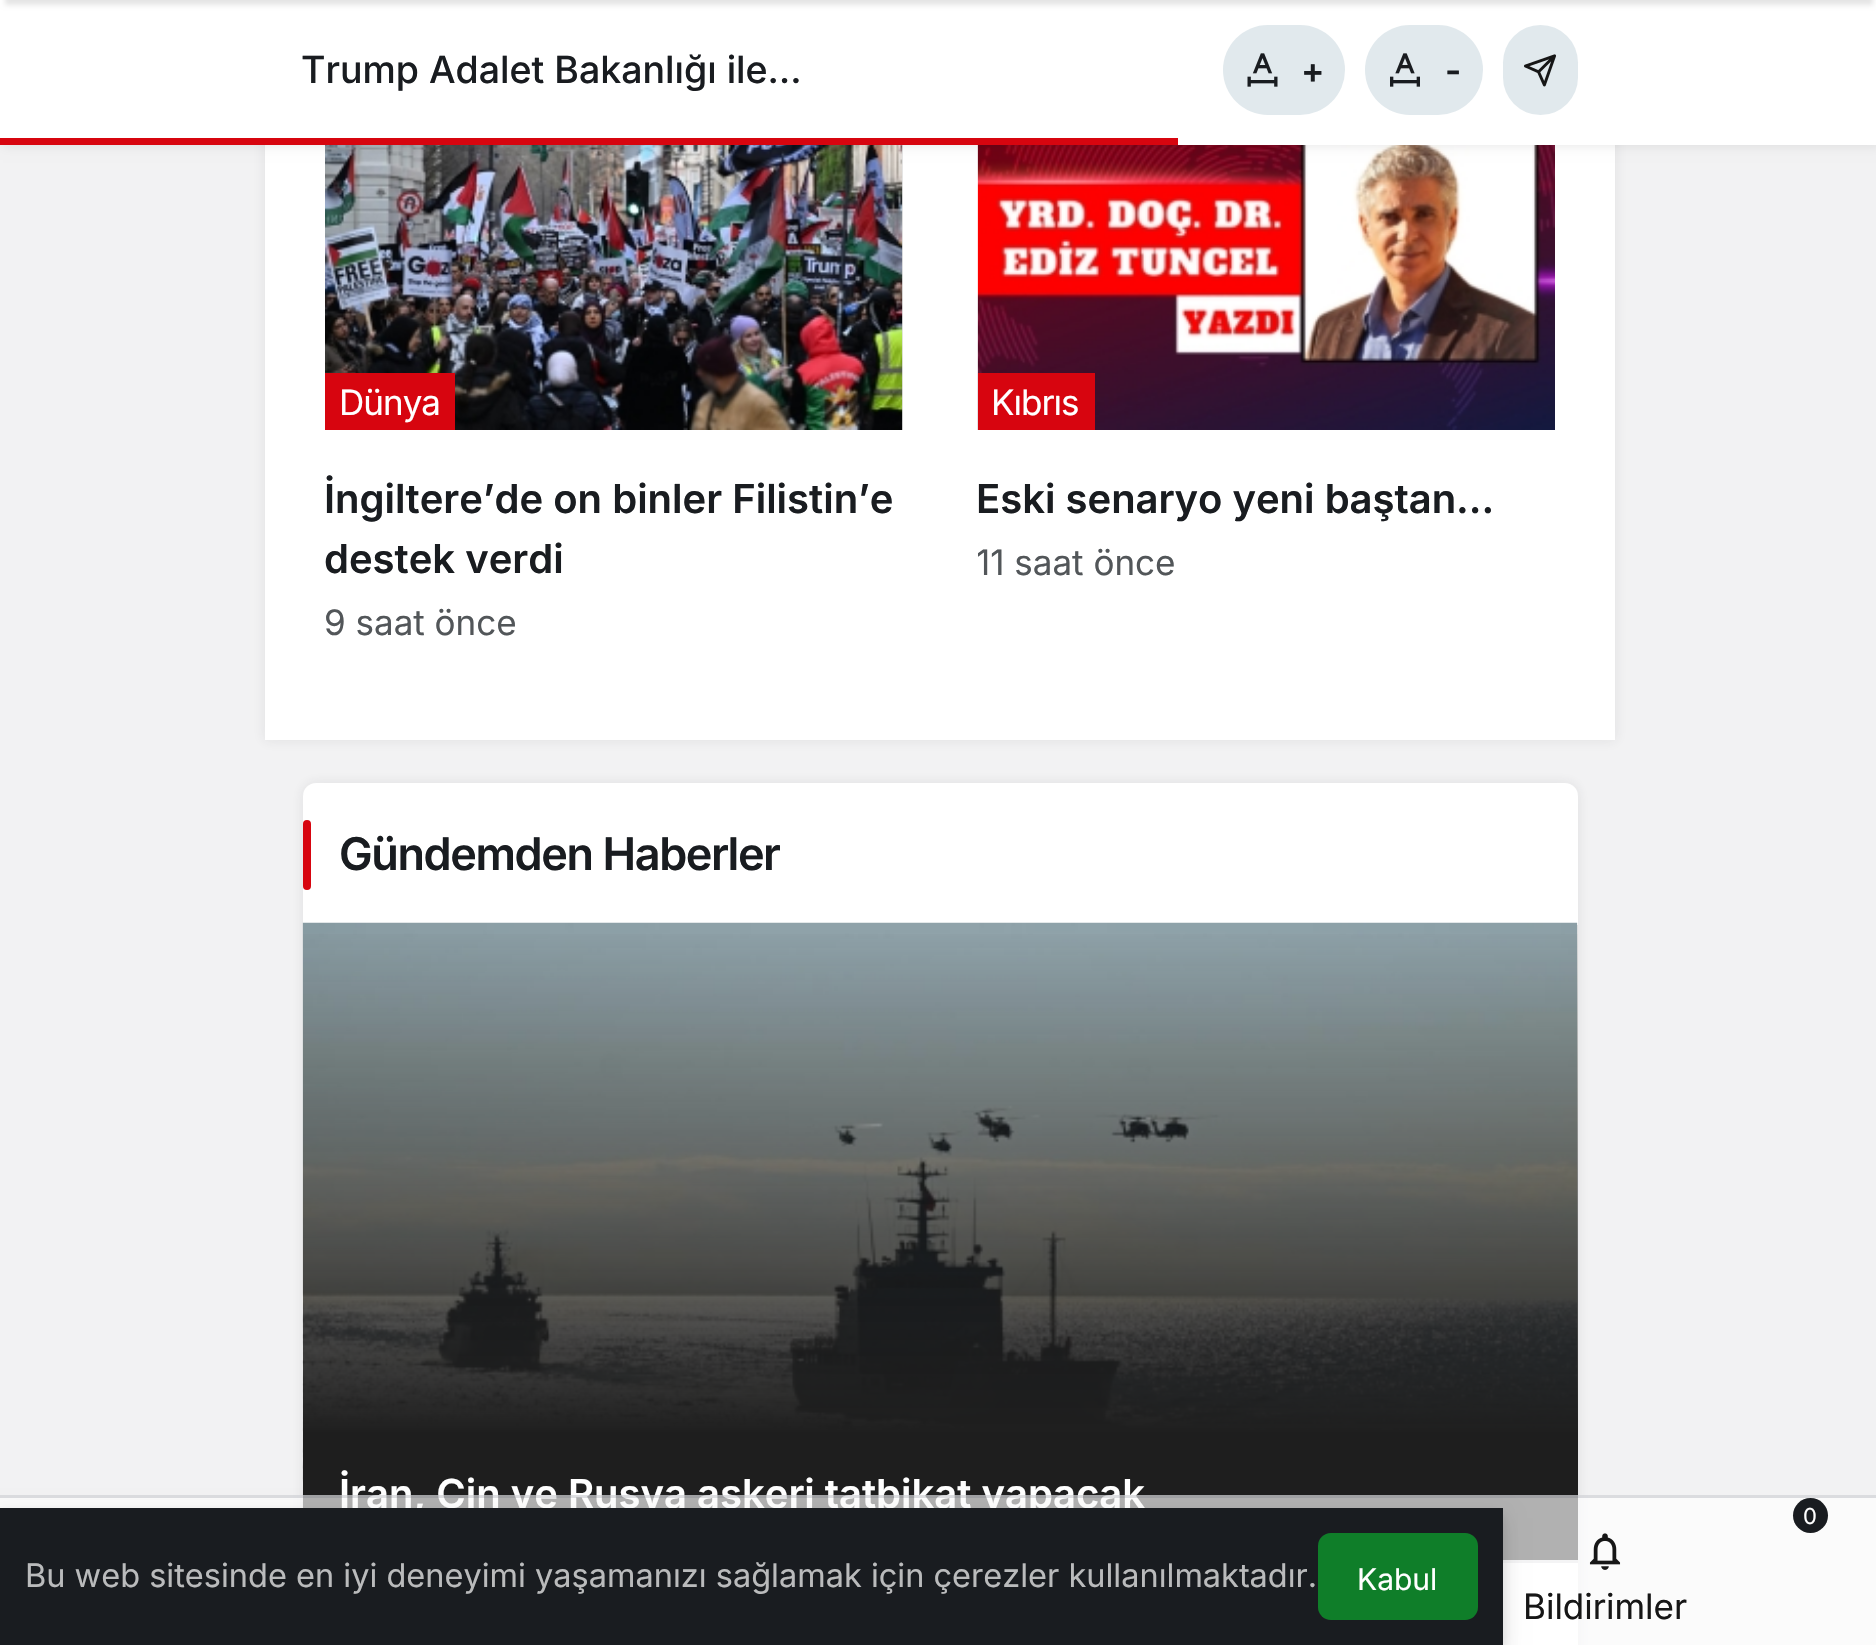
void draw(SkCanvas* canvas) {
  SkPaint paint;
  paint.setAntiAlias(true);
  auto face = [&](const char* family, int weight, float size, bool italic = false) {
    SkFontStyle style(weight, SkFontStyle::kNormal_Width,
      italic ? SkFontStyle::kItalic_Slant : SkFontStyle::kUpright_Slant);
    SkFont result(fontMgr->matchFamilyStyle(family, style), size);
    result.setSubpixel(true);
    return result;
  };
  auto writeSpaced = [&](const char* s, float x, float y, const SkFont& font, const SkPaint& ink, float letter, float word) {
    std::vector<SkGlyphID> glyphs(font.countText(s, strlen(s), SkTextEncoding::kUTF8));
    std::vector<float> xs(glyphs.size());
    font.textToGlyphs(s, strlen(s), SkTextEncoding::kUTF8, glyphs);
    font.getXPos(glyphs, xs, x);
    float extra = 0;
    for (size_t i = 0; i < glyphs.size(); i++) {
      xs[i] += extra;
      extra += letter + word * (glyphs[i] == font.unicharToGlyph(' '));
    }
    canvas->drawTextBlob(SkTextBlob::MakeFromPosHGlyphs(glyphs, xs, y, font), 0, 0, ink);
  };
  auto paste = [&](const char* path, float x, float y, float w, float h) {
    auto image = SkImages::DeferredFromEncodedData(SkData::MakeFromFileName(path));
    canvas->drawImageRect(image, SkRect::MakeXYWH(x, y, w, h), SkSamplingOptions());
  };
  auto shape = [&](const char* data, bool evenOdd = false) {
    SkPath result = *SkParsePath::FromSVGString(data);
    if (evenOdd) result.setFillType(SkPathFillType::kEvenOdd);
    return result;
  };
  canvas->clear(0xfff2f2f3);
  paint.setColor(0x1a32353d);
  paint.setMaskFilter(SkMaskFilter::MakeBlur(kNormal_SkBlurStyle, 6));
  canvas->drawRect(SkRect::MakeXYWH(265, -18, 1350, 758), paint);
  paint.setMaskFilter(nullptr);
  paint.setColor(0xffffffff);
  canvas->drawRect(SkRect::MakeXYWH(265, 145, 1350, 595), paint);
  paint.setColor(0xffe6e6e6);
  canvas->drawRect(SkRect::MakeXYWH(902, 145, 1, 285), paint);
  paste("img/4.png", 325, 145, 578, 285);
  paste("img/5.png", 977, 145, 578, 285);
  paint.setColor(0x1a000000);
  paint.setMaskFilter(SkMaskFilter::MakeBlur(kNormal_SkBlurStyle, 6));
  canvas->drawRect(SkRect::MakeXYWH(3, 0, 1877, 145), paint);
  paint.setMaskFilter(nullptr);
  paint.setColor(0xffffffff);
  canvas->drawRect(SkRect::MakeXYWH(0, 0, 1876, 145), paint);
  paint.setColor(0x1a000000);
  paint.setMaskFilter(SkMaskFilter::MakeBlur(kNormal_SkBlurStyle, 2.5f));
  canvas->drawRect(SkRect::MakeXYWH(5, -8, 1868, 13), paint);
  paint.setMaskFilter(nullptr);
  paint.setColor(0xffe1e9ed);
  canvas->drawRoundRect(SkRect::MakeXYWH(1223, 25, 122, 90), 45, 45, paint);
  paste("img/1.png", 1247, 53, 31, 34);
  canvas->drawRoundRect(SkRect::MakeXYWH(1365, 25, 118, 90), 45, 45, paint);
  paste("img/2.png", 1390, 53, 30, 34);
  canvas->drawRoundRect(SkRect::MakeXYWH(1503, 25, 75, 90), 37.5f, 37.5f, paint);
  paste("img/3.png", 1524, 54, 32, 33);
  {
    const struct { float x, y, w, h; SkColor color; } items[] = {
      {0, 138, 1178, 7, 0xffd7050f},
      {325, 373, 130, 57, 0xffd7050f},
      {978, 373, 117, 57, 0xffd7050f},
    };
    for (auto [x, y, w, h, color] : items) {
      paint.setColor(color);
      canvas->drawRect(SkRect::MakeXYWH(x, y, w, h), paint);
    }
  }
  paint.setColor(0x1a32353d);
  paint.setMaskFilter(SkMaskFilter::MakeBlur(kNormal_SkBlurStyle, 6));
  canvas->drawRoundRect(SkRect::MakeXYWH(303, 783, 1275, 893), 13, 13, paint);
  paint.setMaskFilter(nullptr);
  paint.setColor(0xffffffff);
  canvas->drawRoundRect(SkRect::MakeXYWH(303, 783, 1275, 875), 13, 13, paint);
  paint.setColor(0xffd7050f);
  canvas->drawRoundRect(SkRect::MakeXYWH(303, 820, 8, 70), 4, 4, paint);
  paint.setColor(0xffdedfe2);
  canvas->drawPath(shape("M305 1560V1563H1578V925V1560Z"), paint);
  paint.setColor(0xffe6e6e6);
  canvas->drawRect(SkRect::MakeXYWH(1577, 925, 1, 505), paint);
  paste("img/6.png", 302, 922, 1276, 586);
  {
    const SkColor colors[] = {0x001e1e1e, 0xff1e1e1e};
    const float stops[] = {0, 0.8f};
    const SkPoint ends[] = {{940, 923}, {940, 1560}};
    paint.setShader(SkGradientShader::MakeLinear(ends, colors, stops, 2, SkTileMode::kClamp));
    paint.setAlpha(255);
  }
  canvas->drawRect(SkRect::MakeXYWH(303, 934, 1275, 626), paint);
  auto f0 = face("Inter", 500, 37.5f);
  paint.setShader(nullptr);
  paint.setColor(0xff191c20);
  canvas->drawString("Trump Adalet Bakanlığı ile…", 301, 83, f0, paint);
  auto f1 = face("Inter", 600, 35);
  canvas->drawString("+", 1301, 83, f1, paint);
  canvas->drawString("-", 1445, 83, f1, paint);
  auto f2 = face("Inter", 400, 35);
  paint.setColor(0xffffffff);
  writeSpaced("Dünya", 339, 415, f2, paint, -1, 0);
  paint.setColor(0xff525659);
  canvas->drawString("9 saat önce", 324, 635, f2, paint);
  auto f3 = face("Inter", 600, 40);
  paint.setColor(0xff191c20);
  canvas->drawString("İngiltere’de on binler Filistin’e", 324, 513, f3, paint);
  canvas->drawString("destek verdi", 324, 573, f3, paint);
  paint.setColor(0xffffffff);
  writeSpaced("Kıbrıs", 991, 415, f2, paint, -1, 0);
  canvas->save();
  canvas->clipPath(shape("M991 45H1542C1549 45 1555 51 1555 58V630C1555 637 1549 643 1542 643H991C984 643 978 637 978 630V58C978 51 984 45 991 45Z"), true);
  paint.setColor(0xff525659);
  canvas->drawString("11 saat önce", 976, 575, f2, paint);
  canvas->restore();
  paint.setColor(0xff191c20);
  canvas->drawString("Eski senaryo yeni baştan…", 976, 513, f3, paint);
  auto f4 = face("Inter", 600, 45);
  writeSpaced("Gündemden Haberler", 339, 870, f4, paint, -1.4f, 0);
  paint.setColor(0xffffffff);
  canvas->drawString("İran, Çin ve Rusya askeri tatbikat yapacak", 339, 1508, f3, paint);
  paint.setColor(0xa6ffffff);
  canvas->drawRect(SkRect::MakeXYWH(0, 1495, 1876, 150), paint);
  paint.setColor(0x335b616e);
  canvas->drawRect(SkRect::MakeXYWH(0, 1495, 1876, 3), paint);
  paint.setColor(0x1f000000);
  paint.setMaskFilter(SkMaskFilter::MakeBlur(kNormal_SkBlurStyle, 10));
  canvas->drawRect(SkRect::MakeXYWH(0, 1518, 1503, 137), paint);
  paint.setMaskFilter(nullptr);
  paint.setColor(0x14000000);
  paint.setMaskFilter(SkMaskFilter::MakeBlur(kNormal_SkBlurStyle, 5));
  canvas->drawRect(SkRect::MakeXYWH(0, 1513, 1503, 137), paint);
  paint.setMaskFilter(nullptr);
  paint.setColor(0xff191c20);
  canvas->drawRect(SkRect::MakeXYWH(0, 1508, 1503, 137), paint);
  paint.setColor(0xff0f7e29);
  canvas->drawRoundRect(SkRect::MakeXYWH(1318, 1533, 160, 87), 13, 13, paint);
  auto f5 = face("Inter", 400, 30);
  paint.setColor(0xffffffff);
  canvas->drawString("Kabul", 1357, 1590, f5, paint);
  auto f6 = face("Inter", 400, 32.5f);
  paint.setColor(0xffbabbbc);
  canvas->drawString("Bu web sitesinde en iyi deneyimi yaşamanızı sağlamak için çerezler kullanılmaktadır.", 25, 1587, f6, paint);
  paint.setColor(0xff191c20);
  canvas->drawCircle(1810.5f, 1515.5f, 17.5f, paint);
  auto f7 = face("Inter", 400, 22);
  paint.setColor(0xffffffff);
  canvas->drawString("0", 1803, 1524, f7, paint);
  paste("img/7.png", 1589, 1533, 32, 37);
  paint.setColor(0xff161616);
  canvas->drawString("Bildirimler", 1523, 1619, f2, paint);
}
